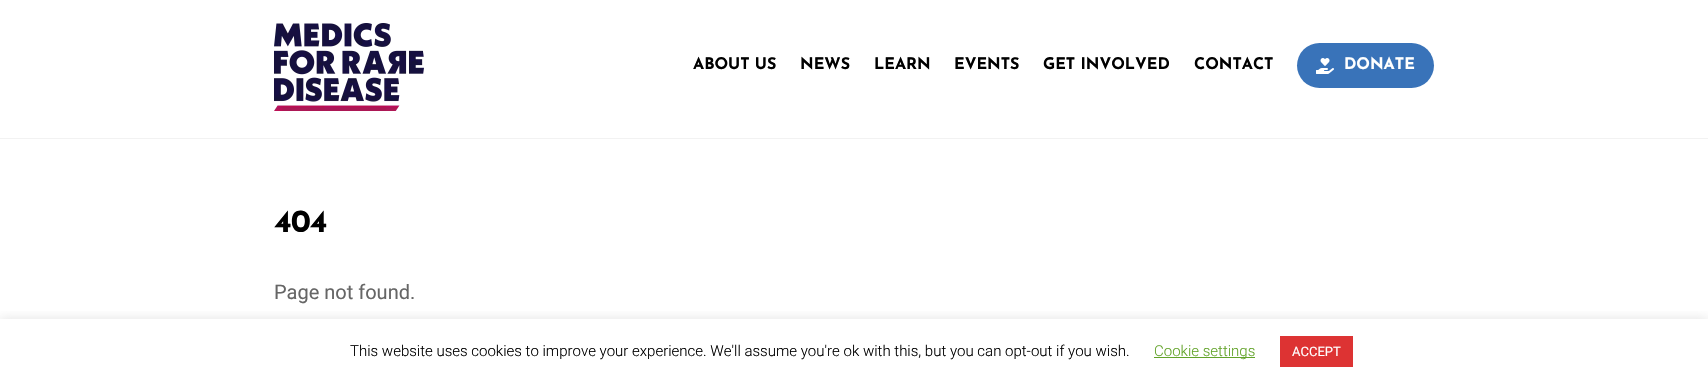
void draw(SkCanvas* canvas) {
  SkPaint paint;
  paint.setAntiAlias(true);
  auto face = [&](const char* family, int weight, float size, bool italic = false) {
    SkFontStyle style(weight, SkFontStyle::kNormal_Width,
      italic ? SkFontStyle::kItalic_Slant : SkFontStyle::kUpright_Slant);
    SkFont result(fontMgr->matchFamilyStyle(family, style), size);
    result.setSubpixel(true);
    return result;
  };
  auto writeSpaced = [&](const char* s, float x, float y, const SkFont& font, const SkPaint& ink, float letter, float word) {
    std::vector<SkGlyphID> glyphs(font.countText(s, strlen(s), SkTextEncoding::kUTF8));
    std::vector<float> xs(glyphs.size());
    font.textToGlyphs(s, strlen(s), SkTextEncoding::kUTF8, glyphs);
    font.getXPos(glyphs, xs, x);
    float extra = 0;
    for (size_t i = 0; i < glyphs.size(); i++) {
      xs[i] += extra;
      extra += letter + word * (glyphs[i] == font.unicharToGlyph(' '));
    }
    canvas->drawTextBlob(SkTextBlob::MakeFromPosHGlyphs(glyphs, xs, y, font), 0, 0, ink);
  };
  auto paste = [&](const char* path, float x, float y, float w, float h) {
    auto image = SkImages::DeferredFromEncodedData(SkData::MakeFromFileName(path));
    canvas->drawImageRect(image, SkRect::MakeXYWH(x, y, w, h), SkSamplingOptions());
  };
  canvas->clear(0xffffffff);
  paint.setColor(0xfff2f2f2);
  canvas->drawRect(SkRect::MakeXYWH(0, 138, 1708, 1), paint);
  paste("img/1.png", 274, 23, 150, 88);
  paint.setColor(0xff3973b9);
  canvas->drawRoundRect(SkRect::MakeXYWH(1297, 43, 137, 45), 22.5f, 22.5f, paint);
  paste("img/2.png", 1316, 58, 18, 16);
  canvas->save();
  canvas->clipRect(SkRect::MakeXYWH(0, 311, 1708, 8));
  paint.setColor(0x4dacabab);
  paint.setMaskFilter(SkMaskFilter::MakeBlur(kNormal_SkBlurStyle, 5));
  canvas->drawRect(SkRect::MakeXYWH(0, 318, 1708, 65), paint);
  paint.setMaskFilter(nullptr);
  canvas->restore();
  paint.setColor(0xff62a329);
  canvas->drawRect(SkRect::MakeXYWH(1154, 357, 101, 1), paint);
  paint.setColor(0xffdd3333);
  canvas->drawRect(SkRect::MakeXYWH(1280, 336, 73, 31), paint);
  auto f0 = face("Josefin Sans", 700, 16);
  paint.setColor(0xff000000);
  {
    const struct { const char* s; float x, y; } items[] = {
      {"ABOUT US", 693, 69},
      {"NEWS", 800, 69},
      {"LEARN", 874, 69},
      {"EVENTS", 954, 69},
      {"GET INVOLVED", 1043, 69},
      {"CONTACT", 1194, 69},
    };
    for (auto [s, x, y] : items) {
      canvas->drawString(s, x, y, f0, paint);
    }
  }
  paint.setColor(0xffffffff);
  canvas->drawString("DONATE", 1344, 69, f0, paint);
  auto f1 = face("Josefin Sans", 700, 32);
  paint.setColor(0xff000000);
  writeSpaced("404", 274, 232, f1, paint, -1, 0);
  auto f2 = face("Roboto", 400, 20);
  paint.setColor(0xff666666);
  canvas->drawString("Page not found.", 274, 299, f2, paint);
  auto f3 = face("Roboto", 300, 15);
  paint.setColor(0xff000000);
  canvas->drawString("This website uses cookies to improve your experience. We'll assume you're ok with this, but you can opt-out if you wish.", 350, 356, f3, paint);
  paint.setColor(0xff62a329);
  canvas->drawString("Cookie settings", 1154, 356, f3, paint);
  auto f4 = face("Roboto", 400, 13);
  paint.setColor(0xffffffff);
  canvas->drawString("ACCEPT", 1292, 356, f4, paint);
}
